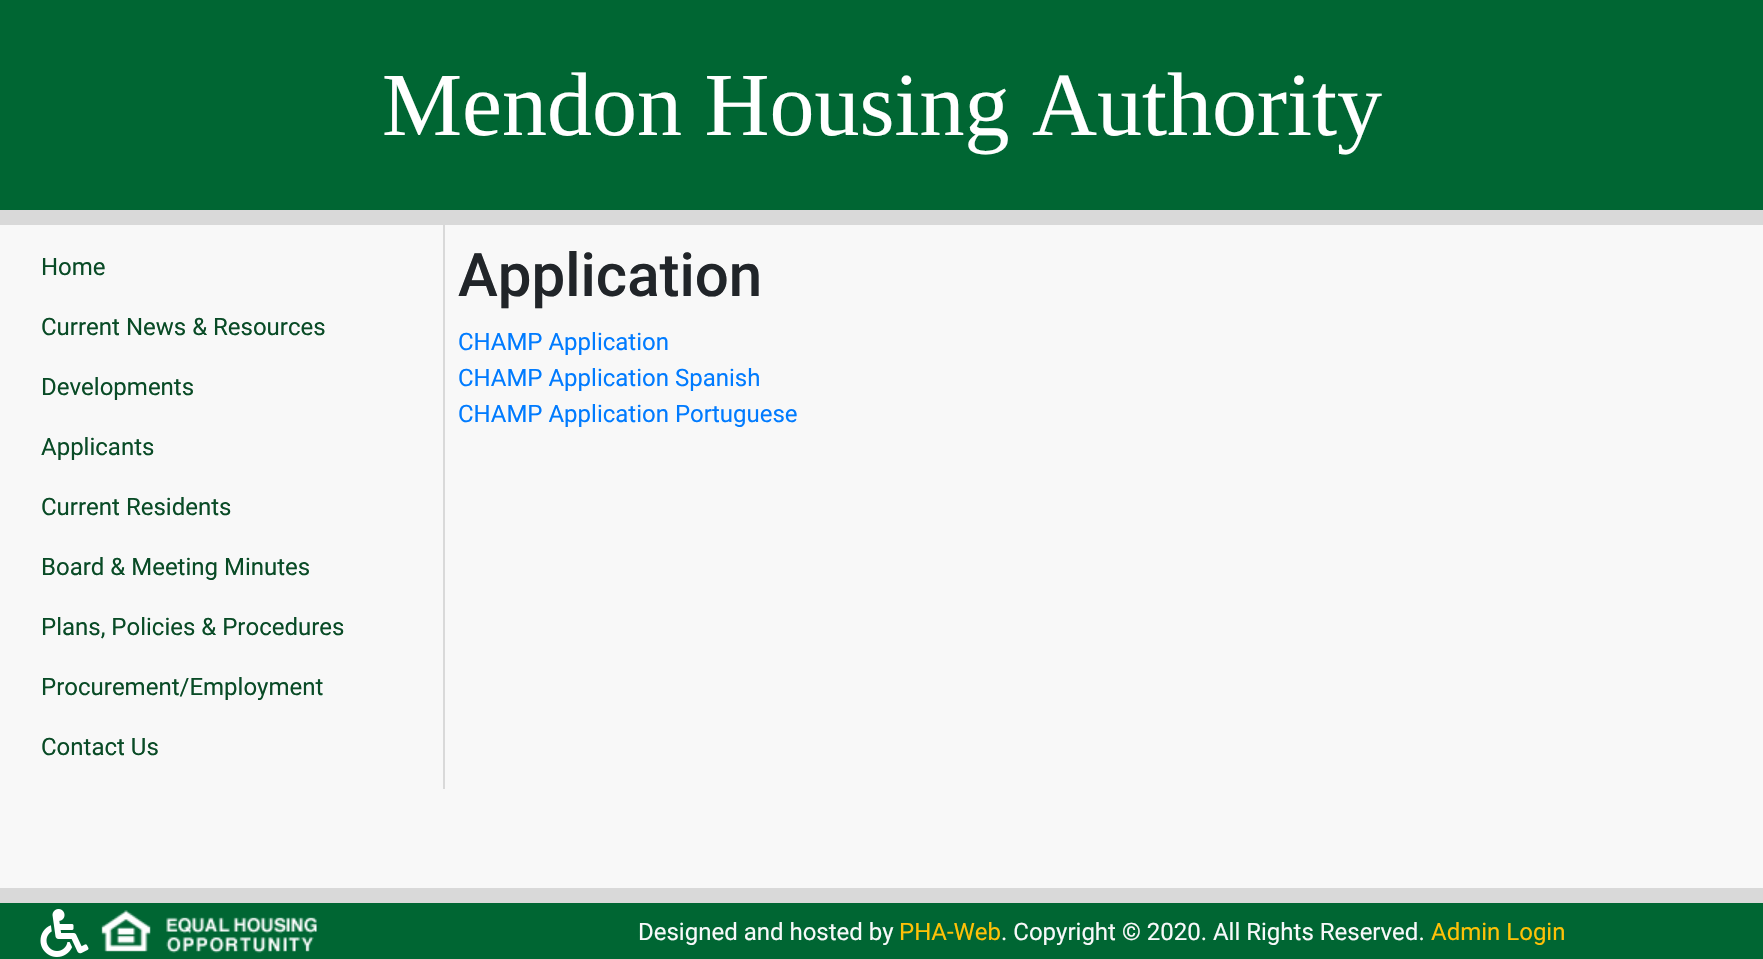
void draw(SkCanvas* canvas) {
  SkPaint paint;
  paint.setAntiAlias(true);
  auto face = [&](const char* family, int weight, float size, bool italic = false) {
    SkFontStyle style(weight, SkFontStyle::kNormal_Width,
      italic ? SkFontStyle::kItalic_Slant : SkFontStyle::kUpright_Slant);
    SkFont result(fontMgr->matchFamilyStyle(family, style), size);
    result.setSubpixel(true);
    return result;
  };
  auto paste = [&](const char* path, float x, float y, float w, float h) {
    auto image = SkImages::DeferredFromEncodedData(SkData::MakeFromFileName(path));
    canvas->drawImageRect(image, SkRect::MakeXYWH(x, y, w, h), SkSamplingOptions());
  };
  canvas->clear(0xfff8f8f8);
  {
    const struct { float x, y, w, h; SkColor color; } items[] = {
      {0, 0, 1763, 210, 0xff006633},
      {0, 210, 1763, 15, 0xffd9d9d9},
      {443, 225, 2, 564, 0xffd9d9d9},
      {0, 903, 1763, 56, 0xff006633},
      {0, 888, 1763, 15, 0xffd9d9d9},
    };
    for (auto [x, y, w, h, color] : items) {
      paint.setColor(color);
      canvas->drawRect(SkRect::MakeXYWH(x, y, w, h), paint);
    }
  }
  paste("img/1.png", 40, 909, 49, 48);
  paste("img/2.png", 101, 910, 216, 43);
  auto f0 = face("Liberation Serif", 400, 90);
  paint.setColor(0xffffffff);
  canvas->drawString("Mendon Housing Authority", 382, 135, f0, paint);
  auto f1 = face("Roboto", 400, 24);
  paint.setColor(0xff094b26);
  {
    const struct { const char* s; float x, y; } items[] = {
      {"Home", 41, 275},
      {"Current News & Resources", 41, 335},
      {"Developments", 41, 395},
      {"Applicants", 41, 455},
      {"Current Residents", 41, 515},
      {"Board & Meeting Minutes", 41, 575},
      {"Plans, Policies & Procedures", 41, 635},
      {"Procurement/Employment", 41, 695},
      {"Contact Us", 41, 755},
    };
    for (auto [s, x, y] : items) {
      canvas->drawString(s, x, y, f1, paint);
    }
  }
  auto f2 = face("Roboto", 500, 60);
  paint.setColor(0xff212529);
  canvas->drawString("Application", 458, 296, f2, paint);
  paint.setColor(0xff007bff);
  {
    const struct { const char* s; float x, y; } items[] = {
      {"CHAMP Application", 458, 350},
      {"CHAMP Application Spanish", 458, 386},
      {"CHAMP Application Portuguese", 458, 422},
    };
    for (auto [s, x, y] : items) {
      canvas->drawString(s, x, y, f1, paint);
    }
  }
  paint.setColor(0xfff8f9fa);
  canvas->drawString("Designed and hosted by", 638, 940, f1, paint);
  paint.setColor(0xffffc107);
  canvas->drawString("PHA-Web", 899, 940, f1, paint);
  paint.setColor(0xfff8f9fa);
  canvas->drawString(". Copyright © 2020. All Rights Reserved.", 1001, 940, f1, paint);
  paint.setColor(0xffffc107);
  canvas->drawString("Admin Login", 1431, 940, f1, paint);
}
